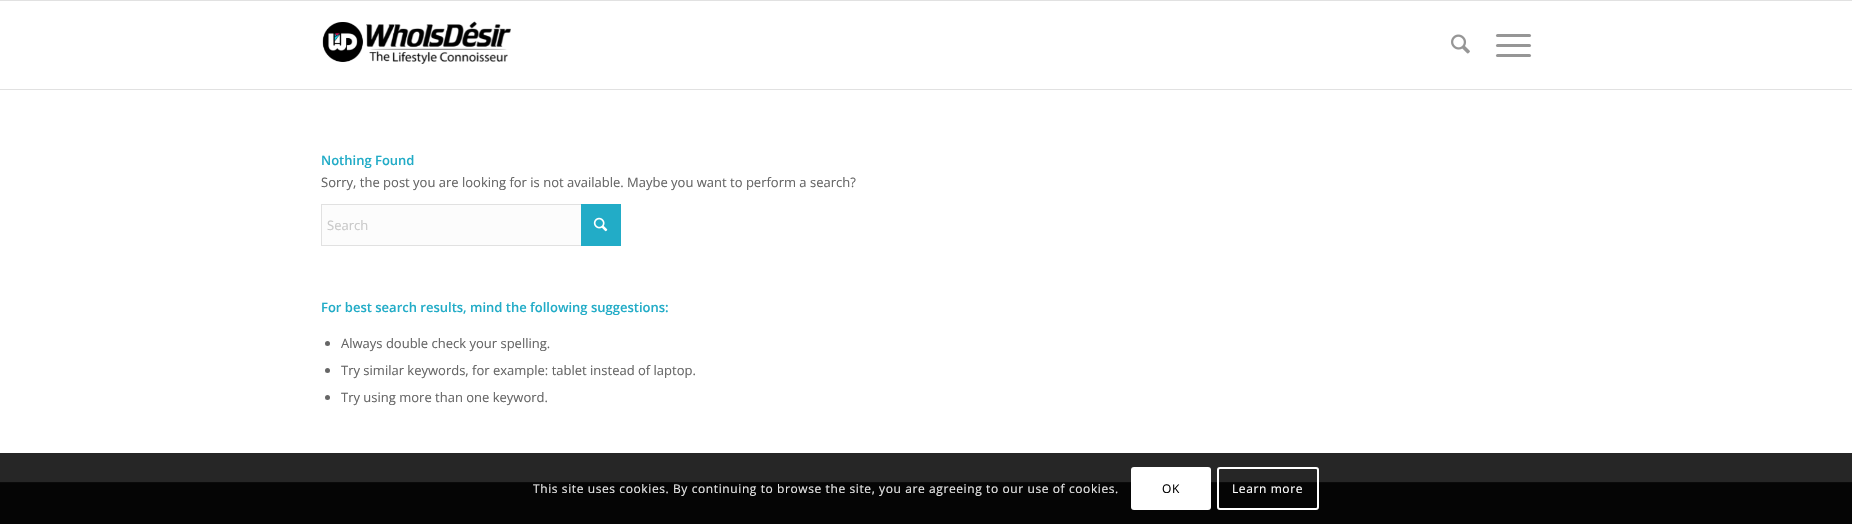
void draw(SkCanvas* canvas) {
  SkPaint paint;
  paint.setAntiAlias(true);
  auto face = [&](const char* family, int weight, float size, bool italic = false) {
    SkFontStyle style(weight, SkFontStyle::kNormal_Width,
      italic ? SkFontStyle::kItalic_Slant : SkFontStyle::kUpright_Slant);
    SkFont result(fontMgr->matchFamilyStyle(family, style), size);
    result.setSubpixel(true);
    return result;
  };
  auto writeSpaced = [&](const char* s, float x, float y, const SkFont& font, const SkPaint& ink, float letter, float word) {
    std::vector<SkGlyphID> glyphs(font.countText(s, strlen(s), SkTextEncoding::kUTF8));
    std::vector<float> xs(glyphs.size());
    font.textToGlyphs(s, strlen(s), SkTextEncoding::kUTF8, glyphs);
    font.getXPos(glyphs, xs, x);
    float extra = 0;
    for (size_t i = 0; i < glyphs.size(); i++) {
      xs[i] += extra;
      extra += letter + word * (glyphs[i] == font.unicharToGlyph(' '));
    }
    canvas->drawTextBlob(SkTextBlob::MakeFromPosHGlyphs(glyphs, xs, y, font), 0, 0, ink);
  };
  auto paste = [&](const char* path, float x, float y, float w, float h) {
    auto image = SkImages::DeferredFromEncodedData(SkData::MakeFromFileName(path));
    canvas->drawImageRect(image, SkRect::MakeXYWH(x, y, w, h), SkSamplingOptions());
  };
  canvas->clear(0xffffffff);
  {
    const struct { float x, y, w, h; SkColor color; } items[] = {
      {0, 453, 1852, 29, 0xff262626},
      {0, 0, 1852, 1, 0xffe1e1e1},
      {0, 89, 1852, 1, 0xffe1e1e1},
    };
    for (auto [x, y, w, h, color] : items) {
      paint.setColor(color);
      canvas->drawRect(SkRect::MakeXYWH(x, y, w, h), paint);
    }
  }
  paste("img/1.png", 322, 21, 189, 43);
  paste("img/2.png", 1451, 34, 19, 20);
  paint.setColor(0xff969696);
  canvas->drawRoundRect(SkRect::MakeXYWH(1496, 44, 35, 3), 1.5f, 1.5f, paint);
  canvas->drawRoundRect(SkRect::MakeXYWH(1496, 34, 35, 3), 1.5f, 1.5f, paint);
  canvas->drawRoundRect(SkRect::MakeXYWH(1496, 54, 35, 3), 1.5f, 1.5f, paint);
  paint.setColor(0xfffcfcfc);
  canvas->drawRect(SkRect::MakeXYWH(322, 205, 259, 40), paint);
  paint.setStroke(true);
  paint.setStrokeWidth(1);
  paint.setColor(0xffe1e1e1);
  canvas->drawRect(SkRect::MakeXYWH(321.5f, 204.5f, 299, 41), paint);
  paint.setStroke(false);
  paint.setColor(0xff22acc7);
  canvas->drawRect(SkRect::MakeXYWH(581, 204, 40, 42), paint);
  paste("img/3.png", 593, 217, 15, 15);
  paint.setColor(0xff666666);
  canvas->drawCircle(327.5f, 343.5f, 2.5f, paint);
  canvas->drawCircle(327.5f, 370.5f, 2.5f, paint);
  canvas->drawCircle(327.5f, 397.5f, 2.5f, paint);
  paint.setColor(0xff050505);
  canvas->drawRect(SkRect::MakeXYWH(0, 483, 1852, 41), paint);
  paint.setColor(0xff0a0a0a);
  canvas->drawRect(SkRect::MakeXYWH(0, 482, 1852, 1), paint);
  paint.setColor(0xffffffff);
  canvas->drawRoundRect(SkRect::MakeXYWH(1131, 467, 80, 43), 3, 3, paint);
  paint.setStroke(true);
  paint.setStrokeWidth(2);
  canvas->drawRoundRect(SkRect::MakeXYWH(1218, 468, 100, 41), 2, 2, paint);
  auto f0 = face("Open Sans", 600, 13);
  paint.setStroke(false);
  paint.setColor(0xff22acc7);
  canvas->drawString("Nothing Found", 321, 165, f0, paint);
  auto f1 = face("Open Sans", 400, 13);
  paint.setColor(0xff666666);
  canvas->drawString("Sorry, the post you are looking for is not available. Maybe you want to perform a search?", 321, 187, f1, paint);
  paint.setColor(0xffc9c9c9);
  canvas->drawString("Search", 327, 230, f1, paint);
  paint.setColor(0xff22acc7);
  canvas->drawString("For best search results, mind the following suggestions:", 321, 312, f0, paint);
  paint.setColor(0xff666666);
  {
    const struct { const char* s; float x, y; } items[] = {
      {"Always double check your spelling.", 341, 348},
      {"Try similar keywords, for example: tablet instead of laptop.", 341, 375},
      {"Try using more than one keyword.", 341, 402},
    };
    for (auto [s, x, y] : items) {
      canvas->drawString(s, x, y, f1, paint);
    }
  }
  auto f2 = face("Open Sans", 400, 12);
  paint.setColor(0xffe6e6e6);
  writeSpaced("This site uses cookies. By continuing to browse the site, you are agreeing to our use of cookies.", 533, 493, f2, paint, 0.6f, 0);
  paint.setColor(0xff000000);
  writeSpaced("OK", 1162, 493, f2, paint, 0.6f, 0);
  paint.setColor(0xffffffff);
  writeSpaced("Learn more", 1232, 493, f2, paint, 0.6f, 0);
}
